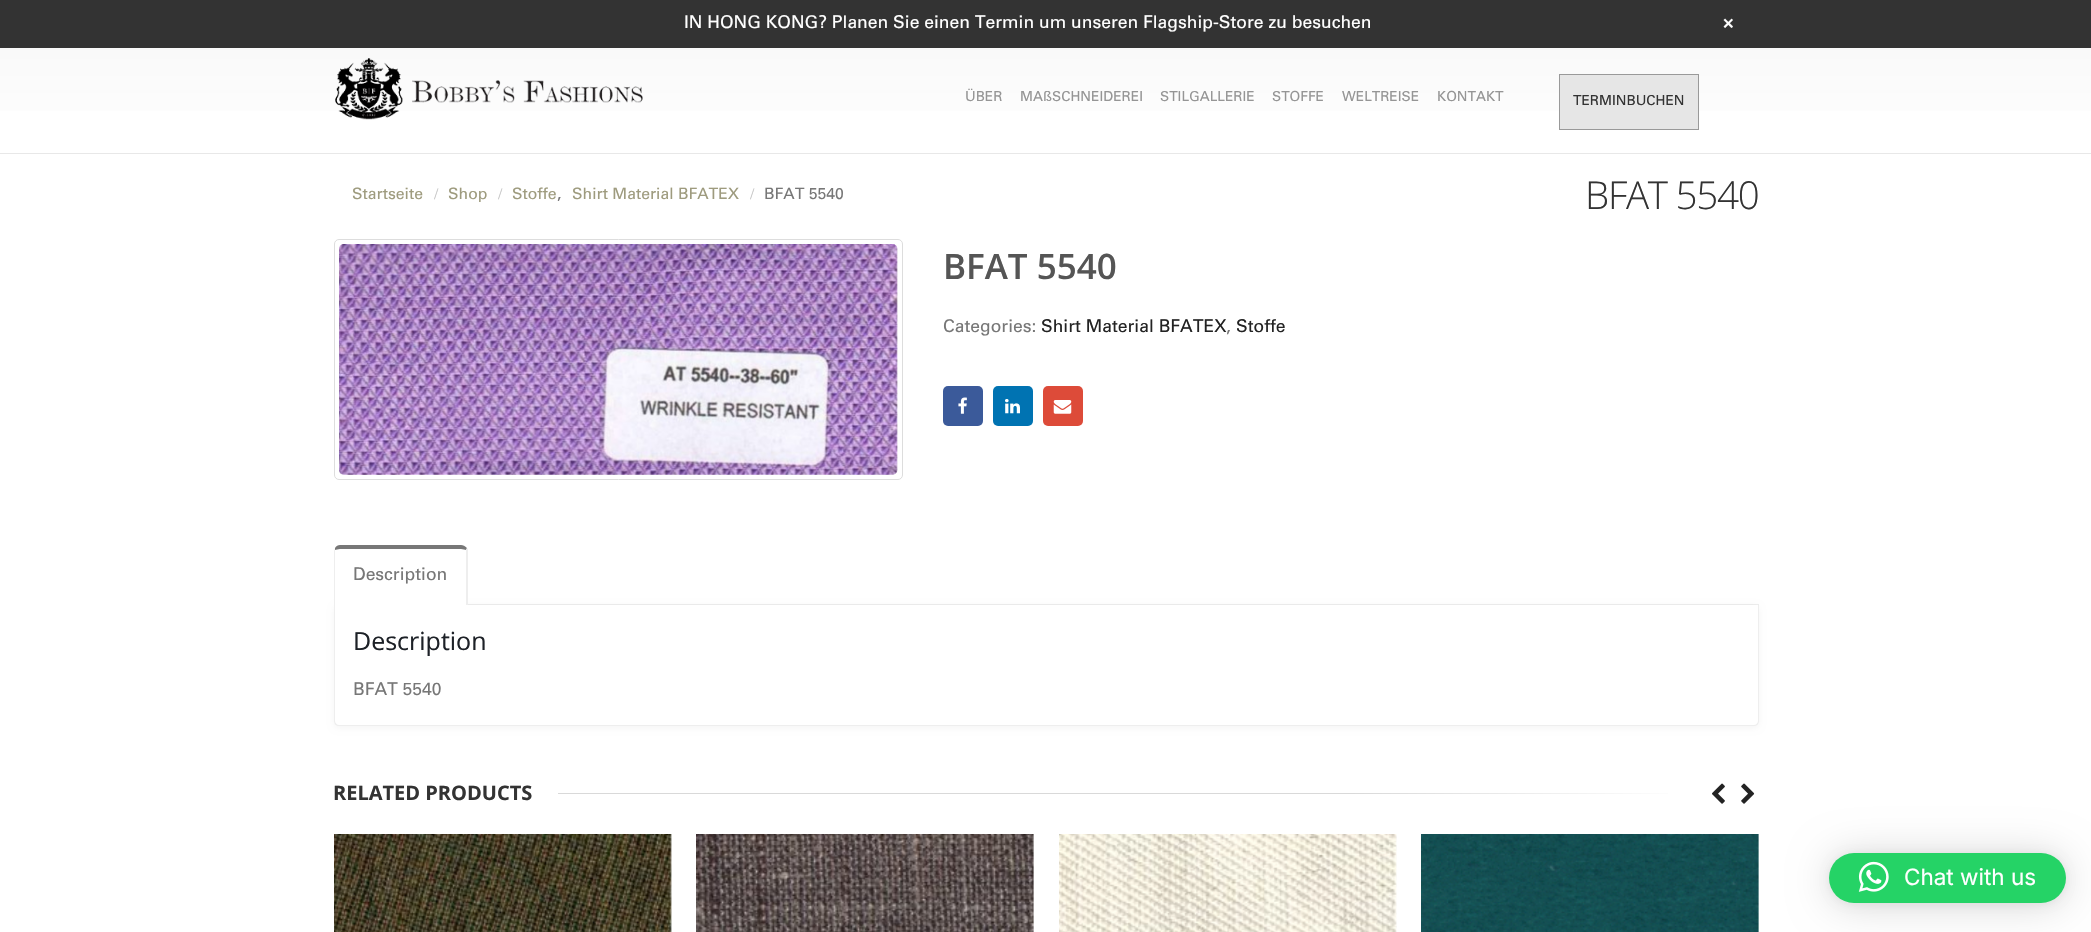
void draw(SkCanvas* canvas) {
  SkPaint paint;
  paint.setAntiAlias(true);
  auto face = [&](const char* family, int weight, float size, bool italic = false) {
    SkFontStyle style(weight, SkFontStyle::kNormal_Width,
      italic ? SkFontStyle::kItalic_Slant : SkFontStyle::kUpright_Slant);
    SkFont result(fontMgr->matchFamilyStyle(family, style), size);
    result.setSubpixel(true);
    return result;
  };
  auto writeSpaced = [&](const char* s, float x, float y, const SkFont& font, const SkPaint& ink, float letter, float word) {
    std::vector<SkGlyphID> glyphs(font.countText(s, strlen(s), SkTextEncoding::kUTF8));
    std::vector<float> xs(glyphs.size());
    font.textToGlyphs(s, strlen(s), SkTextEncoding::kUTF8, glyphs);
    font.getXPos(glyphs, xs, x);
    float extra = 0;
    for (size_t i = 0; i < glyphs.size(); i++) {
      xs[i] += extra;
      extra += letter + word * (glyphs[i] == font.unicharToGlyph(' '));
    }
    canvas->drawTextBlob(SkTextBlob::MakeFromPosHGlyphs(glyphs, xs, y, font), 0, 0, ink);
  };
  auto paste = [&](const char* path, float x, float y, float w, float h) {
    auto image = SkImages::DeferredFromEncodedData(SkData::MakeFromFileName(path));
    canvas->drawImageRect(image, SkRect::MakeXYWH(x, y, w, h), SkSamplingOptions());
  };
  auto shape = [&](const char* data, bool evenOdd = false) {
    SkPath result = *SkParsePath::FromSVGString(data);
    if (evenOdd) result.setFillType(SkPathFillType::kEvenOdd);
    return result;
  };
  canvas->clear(0xffffffff);
  {
    const SkColor colors[] = {0xfff6f6f6, 0xffffffff};
    const float stops[] = {0, 1};
    const SkPoint ends[] = {{1046, 0}, {1046, 153}};
    paint.setShader(SkGradientShader::MakeLinear(ends, colors, stops, 2, SkTileMode::kClamp));
    paint.setAlpha(255);
  }
  canvas->drawRect(SkRect::MakeXYWH(0, 48, 2091, 63), paint);
  paint.setShader(nullptr);
  paint.setColor(0xff333333);
  canvas->drawRect(SkRect::MakeXYWH(0, 0, 2091, 48), paint);
  paste("img/1.png", 335, 58, 308, 62);
  paint.setColor(0xffe6e6e6);
  canvas->drawRect(SkRect::MakeXYWH(1559.5f, 74.5f, 139, 55), paint);
  paint.setStroke(true);
  paint.setStrokeWidth(1);
  paint.setColor(0xff999999);
  canvas->drawRect(SkRect::MakeXYWH(1559.5f, 74.5f, 139, 55), paint);
  paint.setStroke(false);
  paint.setColor(0xffe8e8e8);
  canvas->drawRect(SkRect::MakeXYWH(0, 153, 2091, 1), paint);
  paint.setStroke(true);
  paint.setColor(0xffdddddd);
  canvas->drawRoundRect(SkRect::MakeXYWH(334.5f, 239.5f, 568, 240), 4.5f, 4.5f, paint);
  paste("img/2.png", 339, 244, 559, 231);
  paint.setStroke(false);
  paint.setColor(0xff3b5a9a);
  canvas->drawRoundRect(SkRect::MakeXYWH(943, 386, 40, 40), 5, 5, paint);
  paste("img/3.png", 958, 397, 9, 17);
  paint.setColor(0xff0073b2);
  canvas->drawRoundRect(SkRect::MakeXYWH(993, 386, 40, 40), 5, 5, paint);
  paste("img/4.png", 1005, 399, 15, 15);
  paint.setColor(0xffdd4b39);
  canvas->drawRoundRect(SkRect::MakeXYWH(1043, 386, 40, 40), 5, 5, paint);
  paste("img/5.png", 1053, 400, 19, 14);
  paint.setColor(0xffeeeeee);
  canvas->drawRect(SkRect::MakeXYWH(468, 604, 1291, 1), paint);
  paint.setColor(0x0a000000);
  paint.setMaskFilter(SkMaskFilter::MakeBlur(kNormal_SkBlurStyle, 3));
  canvas->drawRoundRect(SkRect::MakeXYWH(334, 606, 1425, 122), 5, 5, paint);
  paint.setMaskFilter(nullptr);
  paint.setColor(0xffffffff);
  canvas->drawPath(shape("M340 545H462C465.5 545 468 547.5 468 551V605H334V551C334 547.5 336.5 545 340 545Z"), paint);
  paint.setColor(0xff777777);
  canvas->drawPath(shape("M340 545H461C463 545 465 546 467 548L466 550C465 550 463 549 461 549H340C338 549 336 550 335 550V548C336 546 338 545 340 545Z"), paint);
  paint.setColor(0xffeeeeee);
  canvas->drawPath(shape("M466 550L467 548L468 549V605H466Z"), paint);
  canvas->drawPath(shape("M334 605H335C335 599 335 551 335 550V548L334 551Z"), paint);
  paint.setColor(0xffffffff);
  canvas->drawPath(shape("M334 605H1759V721C1759 724 1757 726 1754 726H339C336 726 334 724 334 721Z"), paint);
  paint.setColor(0xffeeeeee);
  canvas->drawPath(shape("M334 605H1759V721C1759 724 1757 726 1754 726H339C336 726 334 724 334 721ZM335 605H1758V721C1758 723 1756 725 1754 725H339C337 725 335 723 335 721Z", true), paint);
  paste("img/6.png", 1712, 783, 13, 21);
  paste("img/7.png", 1741, 783, 14, 21);
  paste("img/8.png", 334, 834, 338, 98);
  paste("img/9.png", 696, 834, 338, 98);
  paste("img/10.png", 1059, 834, 338, 98);
  paste("img/11.png", 1421, 834, 338, 98);
  {
    const SkColor colors[] = {0xffd9d9d9, 0xffd9d9d9, 0xffffffff};
    const float stops[] = {0, 0.7f, 1};
    const SkPoint ends[] = {{558, 793}, {1690, 793}};
    paint.setShader(SkGradientShader::MakeLinear(ends, colors, stops, 3, SkTileMode::kClamp));
    paint.setAlpha(255);
  }
  canvas->drawRect(SkRect::MakeXYWH(558, 793, 1110, 1), paint);
  paint.setShader(nullptr);
  paint.setColor(0x29000000);
  paint.setMaskFilter(SkMaskFilter::MakeBlur(kNormal_SkBlurStyle, 20));
  canvas->drawRoundRect(SkRect::MakeXYWH(1829, 855, 237, 50), 25, 25, paint);
  paint.setMaskFilter(nullptr);
  paint.setColor(0x0f000000);
  paint.setMaskFilter(SkMaskFilter::MakeBlur(kNormal_SkBlurStyle, 4));
  canvas->drawRoundRect(SkRect::MakeXYWH(1829, 854, 237, 50), 25, 25, paint);
  paint.setMaskFilter(nullptr);
  paint.setColor(0xff25d366);
  canvas->drawRoundRect(SkRect::MakeXYWH(1829, 853, 237, 50), 25, 25, paint);
  paste("img/12.png", 1858, 861, 31, 31);
  auto f0 = face("Univers", 400, 17.5f);
  paint.setColor(0xffffffff);
  canvas->drawString("IN HONG KONG? Planen Sie einen Termin um unseren Flagship-Store zu besuchen", 684, 28, f0, paint);
  auto f1 = face("Univers", 700, 17.5f);
  canvas->drawString("×", 1723, 28, f1, paint);
  auto f2 = face("Univers", 400, 13.75f);
  paint.setColor(0xff959595);
  {
    const struct { const char* s; float x, y; } items[] = {
      {"ÜBER", 965, 101},
      {"MAßSCHNEIDEREI", 1020, 101},
      {"STILGALLERIE", 1160, 101},
      {"STOFFE", 1272, 101},
      {"WELTREISE", 1342, 101},
      {"KONTAKT", 1437, 101},
    };
    for (auto [s, x, y] : items) {
      canvas->drawString(s, x, y, f2, paint);
    }
  }
  paint.setColor(0xff333333);
  canvas->drawString("TERMINBUCHEN", 1573, 105, f2, paint);
  auto f3 = face("Univers", 400, 15.75f);
  paint.setColor(0xff9e9b7e);
  canvas->drawString("Startseite", 352, 199, f3, paint);
  auto f4 = face("Liberation Serif", 400, 15.75f);
  paint.setColor(0xffc3c3c3);
  canvas->drawString("/", 434, 199, f4, paint);
  paint.setColor(0xff9e9b7e);
  canvas->drawString("Shop", 448, 199, f3, paint);
  paint.setColor(0xffc3c3c3);
  canvas->drawString("/", 498, 199, f4, paint);
  paint.setColor(0xff9e9b7e);
  canvas->drawString("Stoffe", 512, 199, f3, paint);
  paint.setColor(0xff777777);
  canvas->drawString(",", 557, 199, f3, paint);
  paint.setColor(0xff9e9b7e);
  canvas->drawString("Shirt Material BFATEX", 572, 199, f3, paint);
  paint.setColor(0xffc3c3c3);
  canvas->drawString("/", 750, 199, f4, paint);
  paint.setColor(0xff777777);
  canvas->drawString("BFAT 5540", 764, 199, f3, paint);
  auto f5 = face("Open Sans", 300, 38.5f);
  paint.setColor(0xff333333);
  writeSpaced("BFAT 5540", 1585, 209, f5, paint, -1.25f, 0);
  auto f6 = face("Open Sans", 600, 35);
  paint.setColor(0xff555555);
  canvas->drawString("BFAT 5540", 943, 279, f6, paint);
  paint.setColor(0xff777777);
  canvas->drawString("Categories:", 943, 332, f0, paint);
  paint.setColor(0xff232323);
  canvas->drawString("Shirt Material BFATEX", 1041, 332, f0, paint);
  paint.setColor(0xff777777);
  canvas->drawString(",", 1226, 332, f0, paint);
  paint.setColor(0xff232323);
  canvas->drawString("Stoffe", 1236, 332, f0, paint);
  paint.setColor(0xff777777);
  canvas->drawString("Description", 353, 580, f0, paint);
  auto f7 = face("Open Sans", 400, 25);
  paint.setColor(0xff1d2127);
  canvas->drawString("Description", 353, 650, f7, paint);
  paint.setColor(0xff777777);
  canvas->drawString("BFAT 5540", 353, 695, f0, paint);
  auto f8 = face("Open Sans", 700, 20);
  paint.setColor(0xff333333);
  canvas->drawString("RELATED PRODUCTS", 333, 800, f8, paint);
  auto f9 = face("Inter", 400, 22.5f);
  paint.setColor(0xffffffff);
  canvas->drawString("Chat with us", 1904, 885, f9, paint);
}
